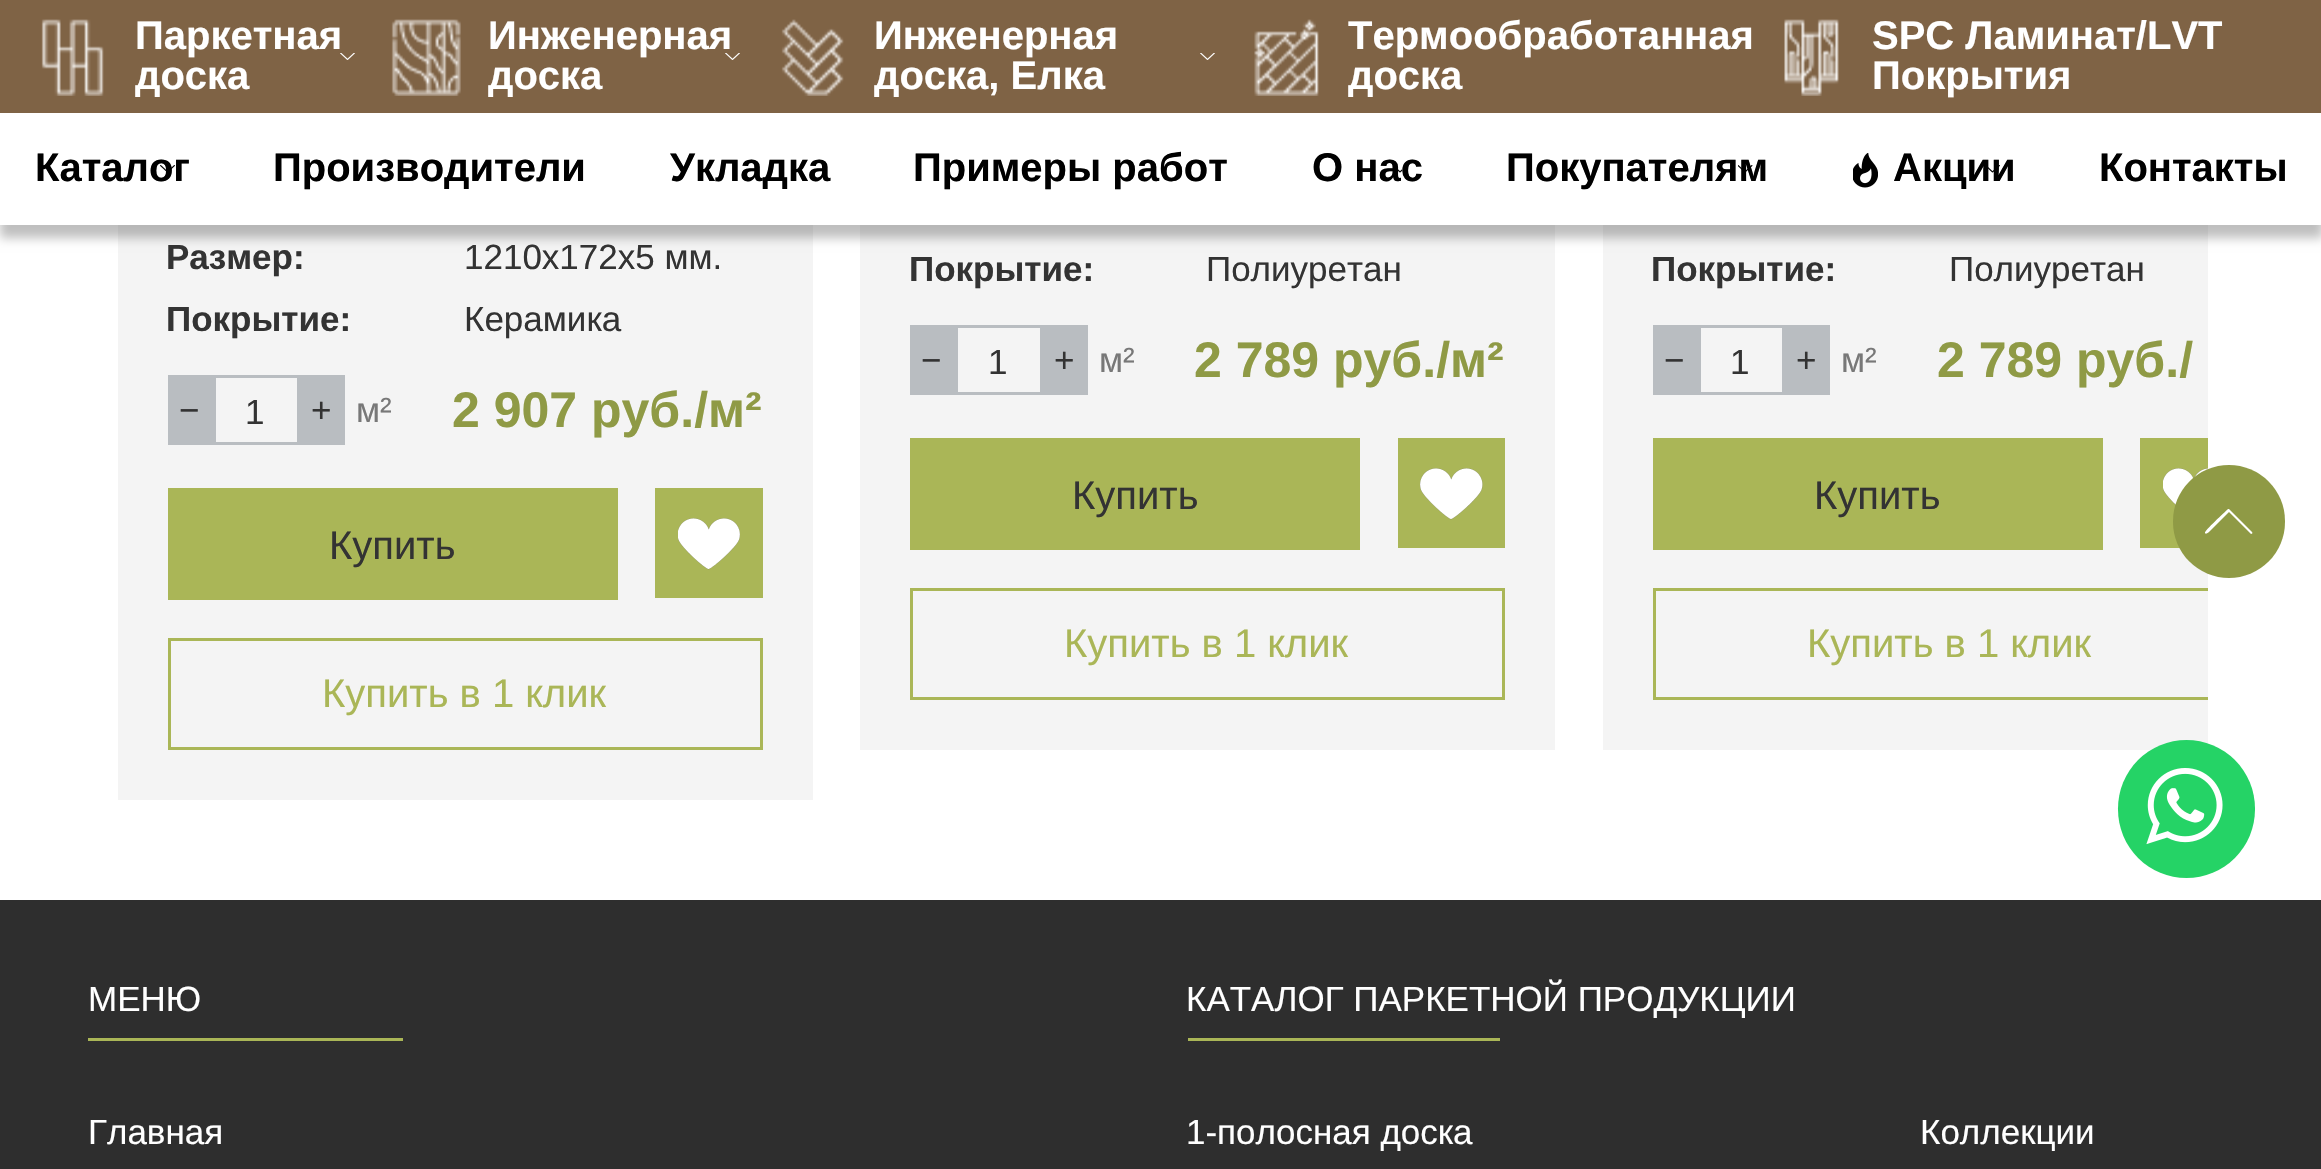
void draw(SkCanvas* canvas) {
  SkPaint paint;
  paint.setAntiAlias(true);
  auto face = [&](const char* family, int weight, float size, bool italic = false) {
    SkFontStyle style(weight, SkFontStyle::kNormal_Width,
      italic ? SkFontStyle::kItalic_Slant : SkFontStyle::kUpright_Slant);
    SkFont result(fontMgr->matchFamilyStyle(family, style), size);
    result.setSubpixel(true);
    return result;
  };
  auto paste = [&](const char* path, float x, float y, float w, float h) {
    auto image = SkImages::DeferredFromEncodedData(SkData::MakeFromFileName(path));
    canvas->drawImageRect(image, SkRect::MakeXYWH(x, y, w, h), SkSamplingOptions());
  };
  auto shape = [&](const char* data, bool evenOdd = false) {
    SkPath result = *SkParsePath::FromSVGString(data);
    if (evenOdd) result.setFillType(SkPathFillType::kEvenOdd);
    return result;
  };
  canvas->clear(0xffffffff);
  {
    const struct { float x, y, w, h; SkColor color; } items[] = {
      {118, 225, 695, 575, 0xfff4f4f4},
      {860, 225, 695, 525, 0xfff4f4f4},
      {1603, 225, 605, 525, 0xfff4f4f4},
    };
    for (auto [x, y, w, h, color] : items) {
      paint.setColor(color);
      canvas->drawRect(SkRect::MakeXYWH(x, y, w, h), paint);
    }
  }
  paint.setColor(0x40000000);
  paint.setMaskFilter(SkMaskFilter::MakeBlur(kNormal_SkBlurStyle, 5));
  canvas->drawRect(SkRect::MakeXYWH(0, 13, 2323, 225), paint);
  paint.setMaskFilter(nullptr);
  paint.setColor(0xffffffff);
  canvas->drawRect(SkRect::MakeXYWH(0, 113, 2321, 112), paint);
  paint.setColor(0xff7f6345);
  canvas->drawRect(SkRect::MakeXYWH(0, 0, 2321, 113), paint);
  paste("img/1.png", 41, 19, 63, 77);
  paste("img/2.png", 340, 53, 15, 7);
  paste("img/3.png", 391, 19, 70, 77);
  paste("img/4.png", 781, 19, 63, 77);
  paste("img/2.png", 1200, 53, 15, 7);
  paste("img/5.png", 1254, 19, 65, 77);
  paste("img/6.png", 1784, 19, 55, 77);
  paste("img/10.png", 1853, 153, 25, 35);
  paint.setColor(0xffb9bdc1);
  canvas->drawRect(SkRect::MakeXYWH(168, 375, 45, 70), paint);
  paint.setStroke(true);
  paint.setStrokeWidth(3);
  canvas->drawRect(SkRect::MakeXYWH(214.5f, 376.5f, 84, 67), paint);
  paint.setStroke(false);
  {
    const struct { float x, y, w, h; SkColor color; } items[] = {
      {300, 375, 45, 70, 0xffb9bdc1},
      {168, 488, 450, 112, 0xffaab657},
      {655, 488, 108, 110, 0xffaab657},
    };
    for (auto [x, y, w, h, color] : items) {
      paint.setColor(color);
      canvas->drawRect(SkRect::MakeXYWH(x, y, w, h), paint);
    }
  }
  paste("img/12.png", 678, 518, 62, 52);
  paint.setStroke(true);
  canvas->drawRect(SkRect::MakeXYWH(169.5f, 639.5f, 592, 109), paint);
  paint.setStroke(false);
  paint.setColor(0xffb9bdc1);
  canvas->drawRect(SkRect::MakeXYWH(910, 325, 45, 70), paint);
  paint.setStroke(true);
  canvas->drawRect(SkRect::MakeXYWH(956.5f, 326.5f, 85, 67), paint);
  paint.setStroke(false);
  {
    const struct { float x, y, w, h; SkColor color; } items[] = {
      {1043, 325, 45, 70, 0xffb9bdc1},
      {910, 438, 450, 112, 0xffaab657},
      {1398, 438, 107, 110, 0xffaab657},
    };
    for (auto [x, y, w, h, color] : items) {
      paint.setColor(color);
      canvas->drawRect(SkRect::MakeXYWH(x, y, w, h), paint);
    }
  }
  paste("img/13.png", 1420, 468, 63, 52);
  paint.setStroke(true);
  canvas->drawRect(SkRect::MakeXYWH(911.5f, 589.5f, 592, 109), paint);
  paint.setStroke(false);
  paint.setColor(0xffb9bdc1);
  canvas->drawRect(SkRect::MakeXYWH(1653, 325, 45, 70), paint);
  paint.setStroke(true);
  canvas->drawRect(SkRect::MakeXYWH(1699.5f, 326.5f, 84, 67), paint);
  paint.setStroke(false);
  {
    const struct { float x, y, w, h; SkColor color; } items[] = {
      {1785, 325, 45, 70, 0xffb9bdc1},
      {1653, 438, 450, 112, 0xffaab657},
      {2140, 438, 68, 110, 0xffaab657},
    };
    for (auto [x, y, w, h, color] : items) {
      paint.setColor(color);
      canvas->drawRect(SkRect::MakeXYWH(x, y, w, h), paint);
    }
  }
  paste("img/14.png", 2163, 468, 45, 38);
  canvas->save();
  canvas->clipRect(SkRect::MakeXYWH(118, 0, 2090, 800));
  paint.setStroke(true);
  canvas->drawRect(SkRect::MakeXYWH(1654.5f, 589.5f, 592, 109), paint);
  canvas->restore();
  paint.setStroke(false);
  paint.setColor(0xff8f9a45);
  canvas->drawRoundRect(SkRect::MakeXYWH(2173, 465, 112, 113), 56, 56, paint);
  paint.setColor(0xffffffff);
  canvas->drawPath(shape("M2228 509C2225 512 2204 531 2205 533C2206 535 2209 532 2211 530L2229 512L2251 534C2252 534 2253 533 2252 532L2229 509Z"), paint);
  paint.setColor(0xff25d366);
  canvas->drawRoundRect(SkRect::MakeXYWH(2118, 740, 137, 138), 68.5f, 68.5f, paint);
  paste("img/15.png", 2146, 768, 77, 77);
  {
    const struct { float x, y, w, h; SkColor color; } items[] = {
      {0, 900, 2321, 269, 0xff2e2e2e},
      {88, 1038, 315, 3, 0xffaab657},
      {1188, 1038, 312, 3, 0xffaab657},
    };
    for (auto [x, y, w, h, color] : items) {
      paint.setColor(color);
      canvas->drawRect(SkRect::MakeXYWH(x, y, w, h), paint);
    }
  }
  auto f0 = face("Liberation Sans", 700, 40);
  paint.setColor(0xffffffff);
  {
    const struct { const char* s; float x, y; } items[] = {
      {"Паркетная", 135, 49},
      {"доска", 135, 89},
      {"Инженерная", 488, 49},
    };
    for (auto [s, x, y] : items) {
      canvas->drawString(s, x, y, f0, paint);
    }
  }
  paste("img/2.png", 725, 53, 15, 7);
  {
    const struct { const char* s; float x, y; } items[] = {
      {"доска", 488, 89},
      {"Инженерная", 874, 49},
      {"доска, Елка", 874, 89},
      {"Термообработанная", 1348, 49},
      {"доска", 1348, 89},
      {"SPC Ламинат/LVT", 1872, 49},
      {"Покрытия", 1872, 89},
    };
    for (auto [s, x, y] : items) {
      canvas->drawString(s, x, y, f0, paint);
    }
  }
  paint.setColor(0xff000000);
  canvas->drawString("Каталог", 35, 181, f0, paint);
  paste("img/7.png", 160, 165, 15, 7);
  {
    const struct { const char* s; float x, y; } items[] = {
      {"Производители", 273, 181},
      {"Укладка", 670, 181},
      {"Примеры работ", 913, 181},
      {"О нас", 1312, 181},
    };
    for (auto [s, x, y] : items) {
      canvas->drawString(s, x, y, f0, paint);
    }
  }
  paste("img/8.png", 1397, 168, 5, 5);
  canvas->drawString("Покупателям", 1506, 181, f0, paint);
  paste("img/9.png", 1738, 165, 15, 7);
  canvas->drawString("Акции", 1893, 181, f0, paint);
  paste("img/11.png", 1988, 165, 12, 8);
  canvas->drawString("Контакты", 2099, 181, f0, paint);
  auto f1 = face("Liberation Sans", 700, 35);
  paint.setColor(0xff333333);
  canvas->drawString("Размер:", 166, 269, f1, paint);
  auto f2 = face("Liberation Sans", 400, 35);
  canvas->drawString("1210х172х5 мм.", 464, 269, f2, paint);
  canvas->drawString("Покрытие:", 166, 331, f1, paint);
  {
    const struct { const char* s; float x, y; } items[] = {
      {"Керамика", 464, 331},
      {"−", 179, 422},
      {"1", 245, 424},
      {"+", 311, 422},
    };
    for (auto [s, x, y] : items) {
      canvas->drawString(s, x, y, f2, paint);
    }
  }
  paint.setColor(0xff787878);
  canvas->drawString("м²", 356, 422, f2, paint);
  auto f3 = face("Liberation Sans", 700, 50);
  paint.setColor(0xff8f9a45);
  canvas->drawString("2 907 руб./м²", 452, 427, f3, paint);
  auto f4 = face("Liberation Sans", 400, 40);
  paint.setColor(0xff333333);
  canvas->drawString("Купить", 329, 559, f4, paint);
  paint.setColor(0xffaab657);
  canvas->drawString("Купить в 1 клик", 322, 707, f4, paint);
  paint.setColor(0xff333333);
  canvas->drawString("Покрытие:", 909, 281, f1, paint);
  {
    const struct { const char* s; float x, y; } items[] = {
      {"Полиуретан", 1206, 281},
      {"−", 921, 372},
      {"1", 988, 374},
      {"+", 1054, 372},
    };
    for (auto [s, x, y] : items) {
      canvas->drawString(s, x, y, f2, paint);
    }
  }
  paint.setColor(0xff787878);
  canvas->drawString("м²", 1099, 372, f2, paint);
  paint.setColor(0xff8f9a45);
  canvas->drawString("2 789 руб./м²", 1194, 377, f3, paint);
  paint.setColor(0xff333333);
  canvas->drawString("Купить", 1072, 509, f4, paint);
  paint.setColor(0xffaab657);
  canvas->drawString("Купить в 1 клик", 1064, 657, f4, paint);
  paint.setColor(0xff333333);
  canvas->drawString("Покрытие:", 1651, 281, f1, paint);
  {
    const struct { const char* s; float x, y; } items[] = {
      {"Полиуретан", 1949, 281},
      {"−", 1664, 372},
      {"1", 1730, 374},
      {"+", 1796, 372},
    };
    for (auto [s, x, y] : items) {
      canvas->drawString(s, x, y, f2, paint);
    }
  }
  paint.setColor(0xff787878);
  canvas->drawString("м²", 1841, 372, f2, paint);
  paint.setColor(0xff8f9a45);
  canvas->drawString("2 789 руб./", 1937, 377, f3, paint);
  paint.setColor(0xff333333);
  canvas->drawString("Купить", 1814, 509, f4, paint);
  paint.setColor(0xffaab657);
  canvas->drawString("Купить в 1 клик", 1807, 657, f4, paint);
  paint.setColor(0xffffffff);
  {
    const struct { const char* s; float x, y; } items[] = {
      {"МЕНЮ", 88, 1011},
      {"Главная", 88, 1144},
      {"КАТАЛОГ ПАРКЕТНОЙ ПРОДУКЦИИ", 1186, 1011},
      {"1-полосная доска", 1186, 1144},
      {"Коллекции", 1920, 1144},
    };
    for (auto [s, x, y] : items) {
      canvas->drawString(s, x, y, f2, paint);
    }
  }
}
